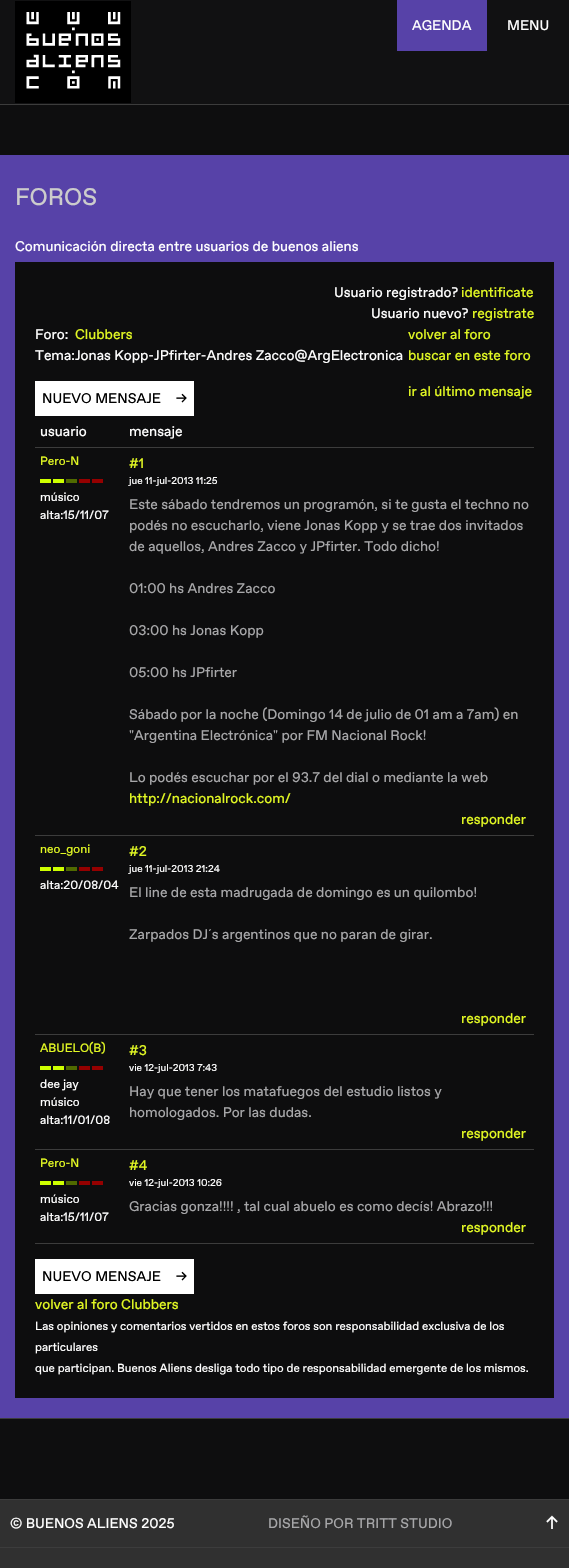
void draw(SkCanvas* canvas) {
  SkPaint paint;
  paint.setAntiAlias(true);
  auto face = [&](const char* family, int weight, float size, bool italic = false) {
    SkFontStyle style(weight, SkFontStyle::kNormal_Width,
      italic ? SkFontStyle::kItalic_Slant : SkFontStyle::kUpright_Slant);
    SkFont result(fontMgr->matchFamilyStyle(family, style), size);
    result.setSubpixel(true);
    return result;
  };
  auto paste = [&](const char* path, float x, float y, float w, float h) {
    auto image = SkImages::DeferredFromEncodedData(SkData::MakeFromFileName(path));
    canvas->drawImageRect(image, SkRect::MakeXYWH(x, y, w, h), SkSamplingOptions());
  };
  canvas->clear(0xff0e0e0f);
  paint.setColor(0xff111112);
  canvas->drawRect(SkRect::MakeXYWH(0, 0, 569, 104), paint);
  paint.setColor(0xff3c3c3c);
  canvas->drawRect(SkRect::MakeXYWH(0, 104, 569, 1), paint);
  paste("img/1.png", 15, 1, 116, 102);
  {
    const struct { float x, y, w, h; SkColor color; } items[] = {
      {397, 0, 90, 51, 0xff5742a8},
      {0, 155, 569, 1263, 0xff5742a8},
      {0, 1418, 569, 1, 0xff3c3c3c},
      {15, 262, 539, 1136, 0xff0d0d0e},
      {35, 381, 159, 35, 0xffffffff},
      {35, 447, 499, 1, 0xff3c3c3c},
      {35, 835, 499, 1, 0xff3c3c3c},
    };
    for (auto [x, y, w, h, color] : items) {
      paint.setColor(color);
      canvas->drawRect(SkRect::MakeXYWH(x, y, w, h), paint);
    }
  }
  paste("img/2.png", 40, 479, 63, 4);
  canvas->drawRect(SkRect::MakeXYWH(35, 1034, 499, 1), paint);
  paste("img/2.png", 40, 867, 63, 4);
  canvas->drawRect(SkRect::MakeXYWH(35, 1149, 499, 1), paint);
  paste("img/2.png", 40, 1066, 63, 4);
  canvas->drawRect(SkRect::MakeXYWH(35, 1243, 499, 1), paint);
  paste("img/2.png", 40, 1181, 63, 4);
  {
    const struct { float x, y, w, h; SkColor color; } items[] = {
      {35, 1259, 159, 35, 0xffffffff},
      {0, 1500, 569, 68, 0xff303030},
      {0, 1499, 569, 1, 0xff3c3c3c},
      {0, 1547, 569, 1, 0xff3c3c3c},
    };
    for (auto [x, y, w, h, color] : items) {
      paint.setColor(color);
      canvas->drawRect(SkRect::MakeXYWH(x, y, w, h), paint);
    }
  }
  auto f0 = face("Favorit", 400, 14);
  paint.setColor(0xffffffff);
  canvas->drawString("AGENDA", 412, 30, f0, paint);
  canvas->drawString("MENU", 507, 30, f0, paint);
  auto f1 = face("Favorit", 400, 24);
  paint.setColor(0xffcccccc);
  canvas->drawString("FOROS", 15, 205, f1, paint);
  paint.setColor(0xffffffff);
  canvas->drawString("Comunicación directa entre usuarios de buenos aliens", 15, 251, f0, paint);
  canvas->drawString("Usuario registrado?", 334, 297, f0, paint);
  paint.setColor(0xffe2f823);
  canvas->drawString("identificate", 461, 297, f0, paint);
  paint.setColor(0xffffffff);
  canvas->drawString("Usuario nuevo?", 371, 318, f0, paint);
  paint.setColor(0xffe2f823);
  canvas->drawString("registrate", 472, 318, f0, paint);
  paint.setColor(0xffffffff);
  canvas->drawString("Foro:", 35, 339, f0, paint);
  paint.setColor(0xffe2f823);
  canvas->drawString("Clubbers", 75, 339, f0, paint);
  canvas->drawString("volver al foro", 408, 339, f0, paint);
  paint.setColor(0xffffffff);
  canvas->drawString("Tema:Jonas Kopp-JPfirter-Andres Zacco@ArgElectronica", 35, 360, f0, paint);
  paint.setColor(0xffe2f823);
  canvas->drawString("buscar en este foro", 408, 360, f0, paint);
  paint.setColor(0xff000000);
  canvas->drawString("NUEVO MENSAJE", 42, 403, f0, paint);
  canvas->drawString("→", 176, 403, f0, paint);
  paint.setColor(0xffe2f823);
  canvas->drawString("ir al último mensaje", 408, 396, f0, paint);
  paint.setColor(0xffffffff);
  canvas->drawString("usuario", 40, 436, f0, paint);
  canvas->drawString("mensaje", 129, 436, f0, paint);
  auto f2 = face("Favorit", 400, 12);
  paint.setColor(0xffe2f823);
  canvas->drawString("Pero-N", 40, 465, f2, paint);
  paint.setColor(0xffffffff);
  canvas->drawString("músico", 40, 501, f2, paint);
  canvas->drawString("alta:15/11/07", 40, 519, f2, paint);
  paint.setColor(0xffe2f823);
  canvas->drawString("#1", 129, 468, f0, paint);
  auto f3 = face("Favorit", 400, 10);
  paint.setColor(0xffffffff);
  canvas->drawString("jue 11-jul-2013 11:25", 129, 484, f3, paint);
  paint.setColor(0xffa7a7a9);
  {
    const struct { const char* s; float x, y; } items[] = {
      {"Este sábado tendremos un programón, si te gusta el techno no", 129, 509},
      {"podés no escucharlo, viene Jonas Kopp y se trae dos invitados", 129, 530},
      {"de aquellos, Andres Zacco y JPfirter. Todo dicho!", 129, 551},
      {"01:00 hs Andres Zacco", 129, 593},
      {"03:00 hs Jonas Kopp", 129, 635},
      {"05:00 hs JPfirter", 129, 677},
      {"Sábado por la noche (Domingo 14 de julio de 01 am a 7am) en", 129, 719},
      {"\"Argentina Electrónica\" por FM Nacional Rock!", 129, 740},
      {"Lo podés escuchar por el 93.7 del dial o mediante la web", 129, 782},
    };
    for (auto [s, x, y] : items) {
      canvas->drawString(s, x, y, f0, paint);
    }
  }
  paint.setColor(0xffe2f823);
  canvas->drawString("http://nacionalrock.com/", 129, 803, f0, paint);
  canvas->drawString("responder", 461, 824, f0, paint);
  canvas->drawString("neo_goni", 40, 853, f2, paint);
  paint.setColor(0xffffffff);
  canvas->drawString("alta:20/08/04", 40, 889, f2, paint);
  paint.setColor(0xffe2f823);
  canvas->drawString("#2", 129, 856, f0, paint);
  paint.setColor(0xffffffff);
  canvas->drawString("jue 11-jul-2013 21:24", 129, 872, f3, paint);
  paint.setColor(0xffa7a7a9);
  canvas->drawString("El line de esta madrugada de domingo es un quilombo!", 129, 897, f0, paint);
  canvas->drawString("Zarpados DJ´s argentinos que no paran de girar.", 129, 939, f0, paint);
  paint.setColor(0xffe2f823);
  canvas->drawString("responder", 461, 1023, f0, paint);
  canvas->drawString("ABUELO(B)", 40, 1052, f2, paint);
  paint.setColor(0xffffffff);
  {
    const struct { const char* s; float x, y; } items[] = {
      {"dee jay", 40, 1088},
      {"músico", 40, 1106},
      {"alta:11/01/08", 40, 1124},
    };
    for (auto [s, x, y] : items) {
      canvas->drawString(s, x, y, f2, paint);
    }
  }
  paint.setColor(0xffe2f823);
  canvas->drawString("#3", 129, 1055, f0, paint);
  paint.setColor(0xffffffff);
  canvas->drawString("vie 12-jul-2013 7:43", 129, 1071, f3, paint);
  paint.setColor(0xffa7a7a9);
  canvas->drawString("Hay que tener los matafuegos del estudio listos y", 129, 1096, f0, paint);
  canvas->drawString("homologados. Por las dudas.", 129, 1117, f0, paint);
  paint.setColor(0xffe2f823);
  canvas->drawString("responder", 461, 1138, f0, paint);
  canvas->drawString("Pero-N", 40, 1167, f2, paint);
  paint.setColor(0xffffffff);
  canvas->drawString("músico", 40, 1203, f2, paint);
  canvas->drawString("alta:15/11/07", 40, 1221, f2, paint);
  paint.setColor(0xffe2f823);
  canvas->drawString("#4", 129, 1170, f0, paint);
  paint.setColor(0xffffffff);
  canvas->drawString("vie 12-jul-2013 10:26", 129, 1186, f3, paint);
  paint.setColor(0xffa7a7a9);
  canvas->drawString("Gracias gonza!!!! , tal cual abuelo es como decís! Abrazo!!!", 129, 1211, f0, paint);
  paint.setColor(0xffe2f823);
  canvas->drawString("responder", 461, 1232, f0, paint);
  paint.setColor(0xff000000);
  canvas->drawString("NUEVO MENSAJE", 42, 1281, f0, paint);
  canvas->drawString("→", 176, 1281, f0, paint);
  paint.setColor(0xffe2f823);
  canvas->drawString("volver al foro Clubbers", 35, 1309, f0, paint);
  auto f4 = face("Favorit", 400, 11.65f);
  paint.setColor(0xffffffff);
  {
    const struct { const char* s; float x, y; } items[] = {
      {"Las opiniones y comentarios vertidos en estos foros son responsabilidad exclusiva de los", 35, 1330},
      {"particulares", 35, 1351},
      {"que participan. Buenos Aliens desliga todo tipo de responsabilidad emergente de los mismos.", 35, 1372},
    };
    for (auto [s, x, y] : items) {
      canvas->drawString(s, x, y, f4, paint);
    }
  }
  canvas->drawString("© BUENOS ALIENS 2025", 10, 1528, f0, paint);
  paint.setColor(0xffa7a7a9);
  canvas->drawString("DISEÑO POR TRITT STUDIO", 268, 1528, f0, paint);
  auto f5 = face("Favorit", 400, 18);
  paint.setColor(0xffffffff);
  canvas->drawString("↑", 545, 1529, f5, paint);
}
